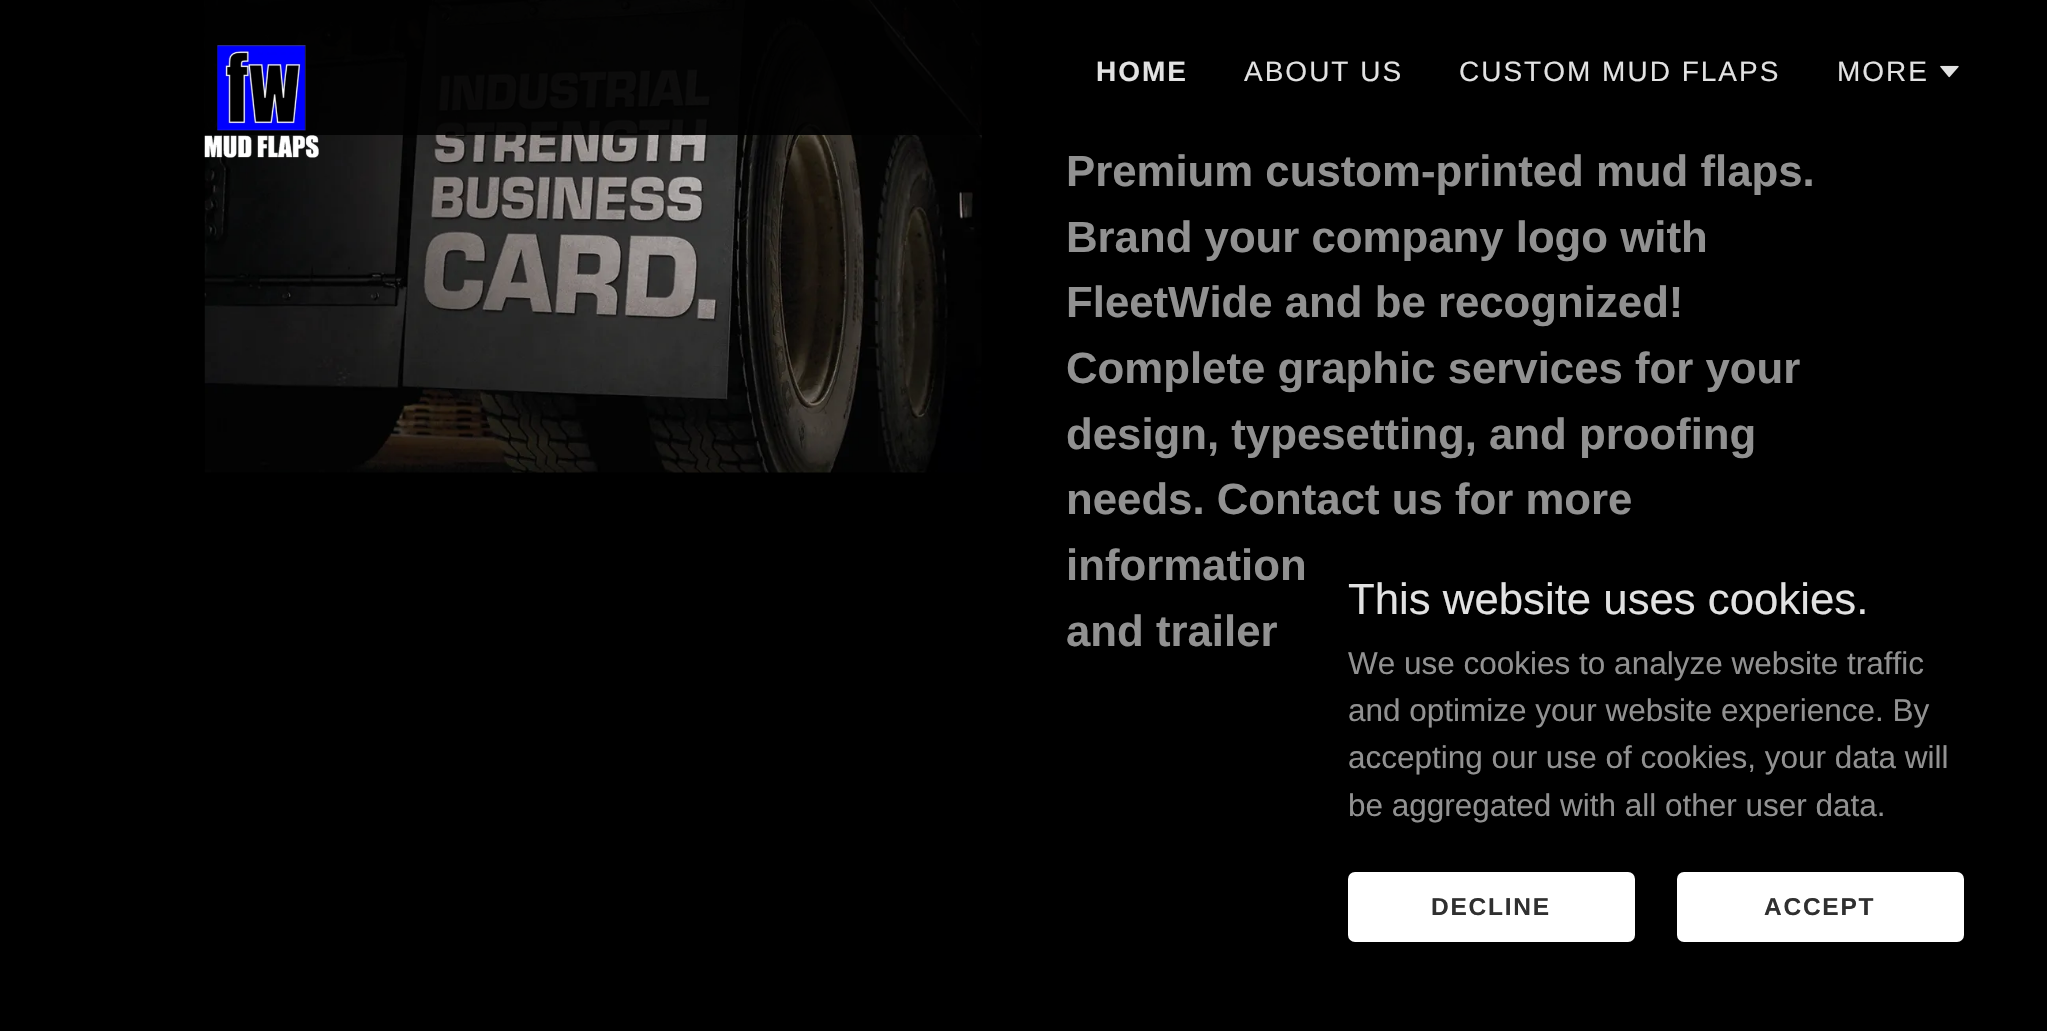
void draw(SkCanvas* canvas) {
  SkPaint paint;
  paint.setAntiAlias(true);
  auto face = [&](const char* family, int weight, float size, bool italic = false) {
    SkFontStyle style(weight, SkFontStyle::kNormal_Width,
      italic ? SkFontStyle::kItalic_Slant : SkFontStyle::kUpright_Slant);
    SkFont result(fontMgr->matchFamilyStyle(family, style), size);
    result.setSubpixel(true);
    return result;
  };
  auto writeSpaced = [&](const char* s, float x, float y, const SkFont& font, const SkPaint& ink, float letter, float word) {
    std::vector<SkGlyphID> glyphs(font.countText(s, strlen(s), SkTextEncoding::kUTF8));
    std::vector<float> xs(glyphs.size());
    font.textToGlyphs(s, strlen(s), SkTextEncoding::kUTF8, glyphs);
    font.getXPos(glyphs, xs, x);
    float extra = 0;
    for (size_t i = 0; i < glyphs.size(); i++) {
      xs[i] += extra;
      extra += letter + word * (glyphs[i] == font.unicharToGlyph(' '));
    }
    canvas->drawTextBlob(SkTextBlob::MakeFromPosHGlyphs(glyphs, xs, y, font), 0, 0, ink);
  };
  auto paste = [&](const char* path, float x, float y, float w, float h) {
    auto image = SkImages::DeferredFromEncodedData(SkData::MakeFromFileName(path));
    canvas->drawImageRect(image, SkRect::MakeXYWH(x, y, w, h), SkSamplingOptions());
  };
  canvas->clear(0xff000000);
  paste("img/3.png", 204, 0, 778, 473);
  paint.setColor(0xe6000000);
  canvas->drawRect(SkRect::MakeXYWH(205, 0, 777, 135), paint);
  paint.setColor(0x40000000);
  canvas->drawRect(SkRect::MakeXYWH(436, 0, 516, 135), paint);
  paste("img/1.png", 204, 45, 115, 113);
  paste("img/2.png", 1940, 65, 19, 13);
  paint.setColor(0x4d000000);
  paint.setMaskFilter(SkMaskFilter::MakeBlur(kNormal_SkBlurStyle, 5));
  canvas->drawRoundRect(SkRect::MakeXYWH(1306, 534, 700, 460), 12, 12, paint);
  paint.setMaskFilter(nullptr);
  paint.setColor(0xffffffff);
  canvas->drawRoundRect(SkRect::MakeXYWH(1348, 872, 287, 70), 7, 7, paint);
  canvas->drawRoundRect(SkRect::MakeXYWH(1677, 872, 287, 70), 7, 7, paint);
  auto f0 = face("Liberation Sans", 700, 28);
  paint.setColor(0xffe2e2e2);
  writeSpaced("HOME", 1096, 81, f0, paint, 2, 0);
  auto f1 = face("Liberation Sans", 400, 28);
  {
    const struct { const char* s; float x, y; } items[] = {
      {"ABOUT US", 1244, 81},
      {"CUSTOM MUD FLAPS", 1459, 81},
      {"MORE", 1837, 81},
    };
    for (auto [s, x, y] : items) {
      writeSpaced(s, x, y, f1, paint, 2, 0);
    }
  }
  auto f2 = face("Liberation Sans", 700, 43.75f);
  paint.setColor(0xff919191);
  {
    const struct { const char* s; float x, y; } items[] = {
      {"Premium custom-printed mud flaps.", 1066, 186},
      {"Brand your company logo with", 1066, 252},
      {"FleetWide and be recognized!", 1066, 317},
      {"Complete graphic services for your", 1066, 383},
      {"design, typesetting, and proofing", 1066, 449},
      {"needs. Contact us for more", 1066, 514},
      {"information", 1066, 580},
      {"and trailer", 1066, 646},
    };
    for (auto [s, x, y] : items) {
      canvas->drawString(s, x, y, f2, paint);
    }
  }
  auto f3 = face("Liberation Sans", 400, 43.75f);
  paint.setColor(0xffe2e2e2);
  canvas->drawString("This website uses cookies.", 1348, 614, f3, paint);
  auto f4 = face("Liberation Sans", 400, 31.5f);
  paint.setColor(0xff919191);
  {
    const struct { const char* s; float x, y; } items[] = {
      {"We use cookies to analyze website traffic", 1348, 674},
      {"and optimize your website experience. By", 1348, 721},
      {"accepting our use of cookies, your data will", 1348, 768},
      {"be aggregated with all other user data.", 1348, 816},
    };
    for (auto [s, x, y] : items) {
      canvas->drawString(s, x, y, f4, paint);
    }
  }
  auto f5 = face("Liberation Sans", 700, 24.5f);
  paint.setColor(0xff303030);
  writeSpaced("DECLINE", 1431, 915, f5, paint, 1.75f, 0);
  writeSpaced("ACCEPT", 1764, 915, f5, paint, 1.75f, 0);
}
